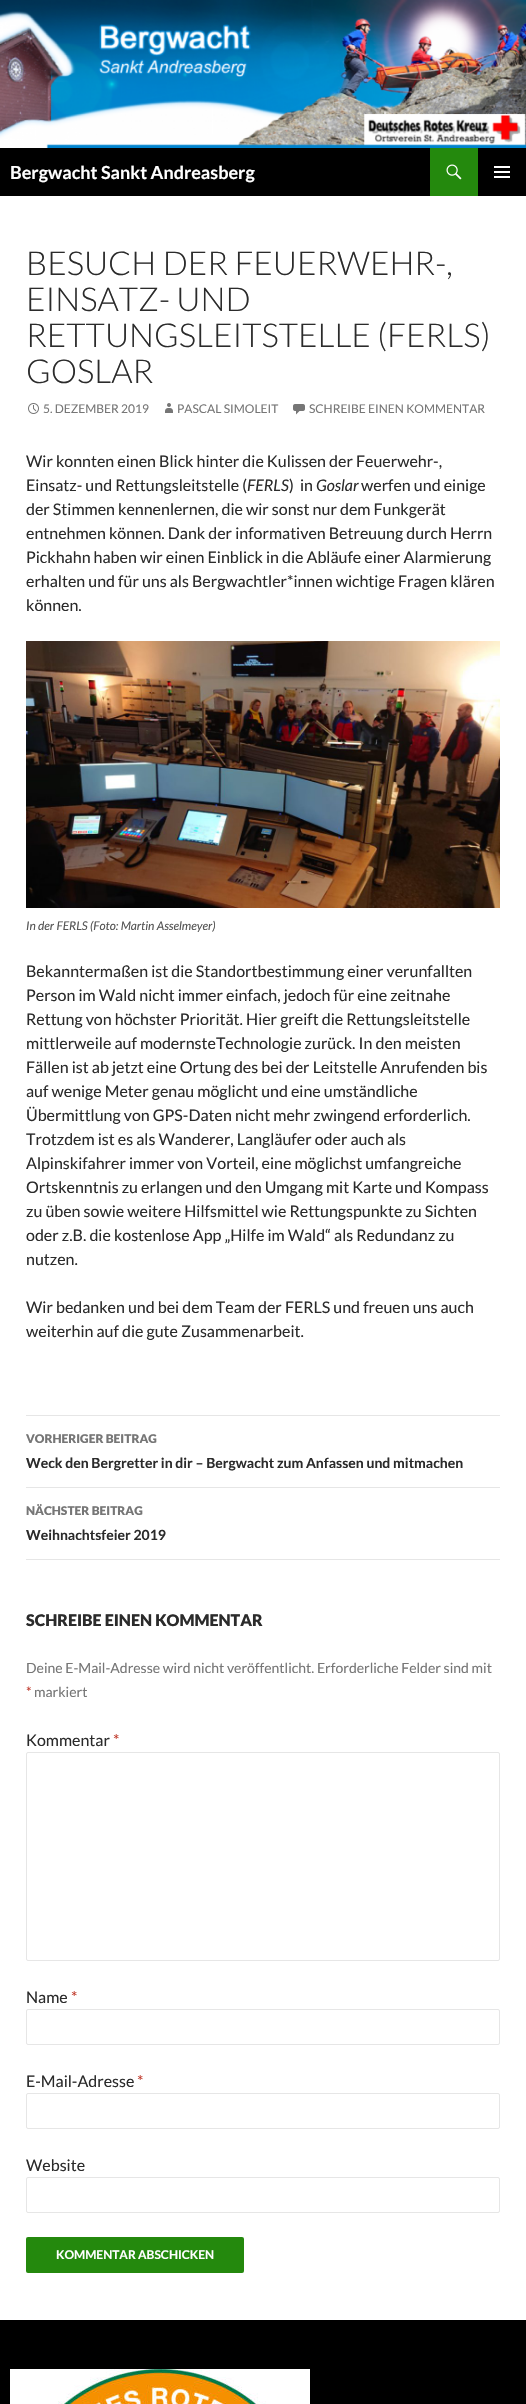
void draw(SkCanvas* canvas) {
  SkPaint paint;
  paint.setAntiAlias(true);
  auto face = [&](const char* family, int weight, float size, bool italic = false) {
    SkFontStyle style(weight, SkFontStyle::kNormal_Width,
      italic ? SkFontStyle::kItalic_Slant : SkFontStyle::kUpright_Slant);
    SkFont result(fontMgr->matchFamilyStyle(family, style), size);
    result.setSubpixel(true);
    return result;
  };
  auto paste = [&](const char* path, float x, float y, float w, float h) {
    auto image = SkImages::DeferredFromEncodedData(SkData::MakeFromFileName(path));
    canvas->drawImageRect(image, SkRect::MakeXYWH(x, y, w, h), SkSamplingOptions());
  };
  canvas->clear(0xffffffff);
  paste("img/1.png", 0, 0, 526, 148);
  paint.setColor(0xff000000);
  canvas->drawRect(SkRect::MakeXYWH(0, 148, 526, 48), paint);
  paint.setColor(0xff24890d);
  canvas->drawRect(SkRect::MakeXYWH(430, 148, 48, 48), paint);
  paste("img/2.png", 446, 164, 16, 16);
  paste("img/3.png", 494, 166, 16, 12);
  paste("img/4.png", 28, 403, 11, 11);
  paste("img/5.png", 165, 403, 8, 10);
  paste("img/6.png", 293, 404, 12, 11);
  paste("img/7.png", 26, 641, 474, 267);
  {
    const struct { float x, y, w, h; SkColor color; } items[] = {
      {26, 1415, 474, 1, 0xffe6e6e6},
      {26, 1487, 474, 1, 0xffe6e6e6},
      {26, 1559, 474, 1, 0xffe6e6e6},
    };
    for (auto [x, y, w, h, color] : items) {
      paint.setColor(color);
      canvas->drawRect(SkRect::MakeXYWH(x, y, w, h), paint);
    }
  }
  paint.setStroke(true);
  paint.setStrokeWidth(1);
  canvas->drawRoundRect(SkRect::MakeXYWH(26.5f, 1752.5f, 473, 208), 1.5f, 1.5f, paint);
  canvas->drawRoundRect(SkRect::MakeXYWH(26.5f, 2009.5f, 473, 35), 1.5f, 1.5f, paint);
  canvas->drawRoundRect(SkRect::MakeXYWH(26.5f, 2093.5f, 473, 35), 1.5f, 1.5f, paint);
  canvas->drawRoundRect(SkRect::MakeXYWH(26.5f, 2177.5f, 473, 35), 1.5f, 1.5f, paint);
  paint.setStroke(false);
  paint.setColor(0xff24890d);
  canvas->drawRoundRect(SkRect::MakeXYWH(26, 2237, 218, 36), 2, 2, paint);
  paint.setColor(0xff000000);
  canvas->drawRect(SkRect::MakeXYWH(0, 2320, 526, 84), paint);
  paste("img/8.png", 10, 2369, 300, 35);
  auto f0 = face("Lato", 700, 18);
  paint.setColor(0xffffffff);
  canvas->drawString("Bergwacht Sankt Andreasberg", 10, 179, f0, paint);
  auto f1 = face("Lato", 300, 33);
  paint.setColor(0xff2b2b2b);
  {
    const struct { const char* s; float x, y; } items[] = {
      {"BESUCH DER FEUERWEHR-,", 26, 275},
      {"EINSATZ- UND", 26, 311},
      {"RETTUNGSLEITSTELLE (FERLS)", 26, 347},
      {"GOSLAR", 26, 383},
    };
    for (auto [s, x, y] : items) {
      canvas->drawString(s, x, y, f1, paint);
    }
  }
  auto f2 = face("Lato", 400, 12);
  paint.setColor(0xff767676);
  {
    const struct { const char* s; float x, y; } items[] = {
      {"5. DEZEMBER 2019", 43, 413},
      {"PASCAL SIMOLEIT", 177, 413},
      {"SCHREIBE EINEN KOMMENTAR", 309, 413},
    };
    for (auto [s, x, y] : items) {
      canvas->drawString(s, x, y, f2, paint);
    }
  }
  auto f3 = face("Lato", 400, 16);
  paint.setColor(0xff2b2b2b);
  canvas->drawString("Wir konnten einen Blick hinter die Kulissen der Feuerwehr-,", 26, 467, f3, paint);
  canvas->drawString("Einsatz- und Rettungsleitstelle (", 26, 491, f3, paint);
  auto f4 = face("Lato", 400, 16, true);
  canvas->drawString("FERLS", 247, 491, f4, paint);
  canvas->drawString(")  in", 289, 491, f3, paint);
  canvas->drawString("Goslar", 316, 491, f4, paint);
  {
    const struct { const char* s; float x, y; } items[] = {
      {"werfen und einige", 361, 491},
      {"der Stimmen kennenlernen, die wir sonst nur dem Funkgerät", 26, 515},
      {"entnehmen können. Dank der informativen Betreuung durch Herrn", 26, 539},
      {"Pickhahn haben wir einen Einblick in die Abläufe einer Alarmierung", 26, 563},
      {"erhalten und für uns als Bergwachtler*innen wichtige Fragen klären", 26, 587},
      {"können.", 26, 611},
    };
    for (auto [s, x, y] : items) {
      canvas->drawString(s, x, y, f3, paint);
    }
  }
  auto f5 = face("Lato", 400, 12, true);
  paint.setColor(0xff555555);
  canvas->drawString("In der FERLS (Foto: Martin Asselmeyer)", 26, 930, f5, paint);
  paint.setColor(0xff2b2b2b);
  {
    const struct { const char* s; float x, y; } items[] = {
      {"Bekanntermaßen ist die Standortbestimmung einer verunfallten", 26, 977},
      {"Person im Wald nicht immer einfach, jedoch für eine zeitnahe", 26, 1001},
      {"Rettung von höchster Priorität. Hier greift die Rettungsleitstelle", 26, 1025},
      {"mittlerweile auf modernsteTechnologie zurück. In den meisten", 26, 1049},
      {"Fällen ist ab jetzt eine Ortung des bei der Leitstelle Anrufenden bis", 26, 1073},
      {"auf wenige Meter genau möglicht und eine umständliche", 26, 1097},
      {"Übermittlung von GPS-Daten nicht mehr zwingend erforderlich.", 26, 1121},
      {"Trotzdem ist es als Wanderer, Langläufer oder auch als", 26, 1145},
      {"Alpinskifahrer immer von Vorteil, eine möglichst umfangreiche", 26, 1169},
      {"Ortskenntnis zu erlangen und den Umgang mit Karte und Kompass", 26, 1193},
      {"zu üben sowie weitere Hilfsmittel wie Rettungspunkte zu Sichten", 26, 1217},
      {"oder z.B. die kostenlose App „Hilfe im Wald“ als Redundanz zu", 26, 1241},
      {"nutzen.", 26, 1265},
      {"Wir bedanken und bei dem Team der FERLS und freuen uns auch", 26, 1313},
      {"weiterhin auf die gute Zusammenarbeit.", 26, 1337},
    };
    for (auto [s, x, y] : items) {
      canvas->drawString(s, x, y, f3, paint);
    }
  }
  auto f6 = face("Lato", 900, 12);
  paint.setColor(0xff767676);
  canvas->drawString("VORHERIGER BEITRAG", 26, 1443, f6, paint);
  auto f7 = face("Lato", 700, 14);
  paint.setColor(0xff2b2b2b);
  canvas->drawString("Weck den Bergretter in dir – Bergwacht zum Anfassen und mitmachen", 26, 1468, f7, paint);
  paint.setColor(0xff767676);
  canvas->drawString("NÄCHSTER BEITRAG", 26, 1515, f6, paint);
  paint.setColor(0xff2b2b2b);
  canvas->drawString("Weihnachtsfeier 2019", 26, 1540, f7, paint);
  auto f8 = face("Lato", 900, 16);
  canvas->drawString("SCHREIBE EINEN KOMMENTAR", 26, 1626, f8, paint);
  auto f9 = face("Lato", 400, 14);
  paint.setColor(0xff767676);
  canvas->drawString("Deine E-Mail-Adresse wird nicht veröffentlicht. Erforderliche Felder sind mit", 26, 1673, f9, paint);
  paint.setColor(0xffc0392b);
  canvas->drawString("*", 26, 1697, f9, paint);
  paint.setColor(0xff767676);
  canvas->drawString("markiert", 34, 1697, f9, paint);
  paint.setColor(0xff2b2b2b);
  canvas->drawString("Kommentar", 26, 1746, f3, paint);
  paint.setColor(0xffc0392b);
  canvas->drawString("*", 113, 1746, f3, paint);
  paint.setColor(0xff2b2b2b);
  canvas->drawString("Name", 26, 2003, f3, paint);
  paint.setColor(0xffc0392b);
  canvas->drawString("*", 71, 2003, f3, paint);
  paint.setColor(0xff2b2b2b);
  canvas->drawString("E-Mail-Adresse", 26, 2087, f3, paint);
  paint.setColor(0xffc0392b);
  canvas->drawString("*", 137, 2087, f3, paint);
  paint.setColor(0xff2b2b2b);
  canvas->drawString("Website", 26, 2171, f3, paint);
  auto f10 = face("Lato", 700, 12);
  paint.setColor(0xffffffff);
  canvas->drawString("KOMMENTAR ABSCHICKEN", 56, 2259, f10, paint);
}
